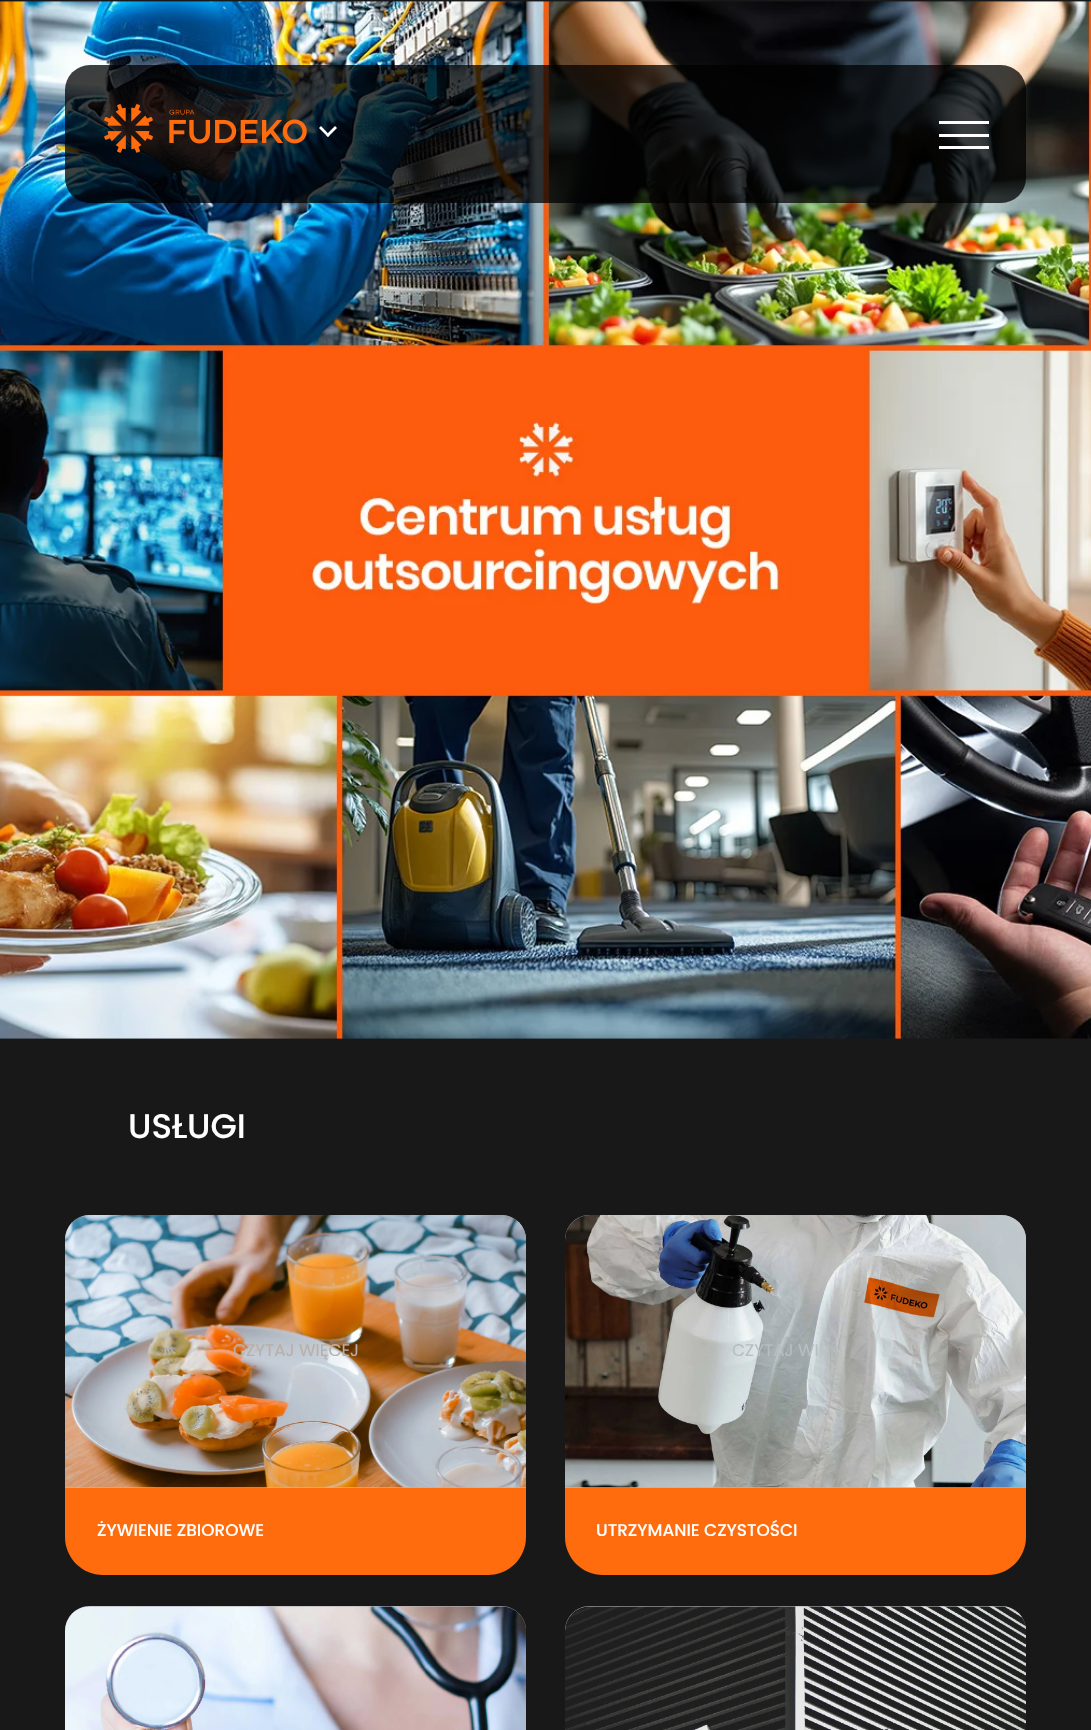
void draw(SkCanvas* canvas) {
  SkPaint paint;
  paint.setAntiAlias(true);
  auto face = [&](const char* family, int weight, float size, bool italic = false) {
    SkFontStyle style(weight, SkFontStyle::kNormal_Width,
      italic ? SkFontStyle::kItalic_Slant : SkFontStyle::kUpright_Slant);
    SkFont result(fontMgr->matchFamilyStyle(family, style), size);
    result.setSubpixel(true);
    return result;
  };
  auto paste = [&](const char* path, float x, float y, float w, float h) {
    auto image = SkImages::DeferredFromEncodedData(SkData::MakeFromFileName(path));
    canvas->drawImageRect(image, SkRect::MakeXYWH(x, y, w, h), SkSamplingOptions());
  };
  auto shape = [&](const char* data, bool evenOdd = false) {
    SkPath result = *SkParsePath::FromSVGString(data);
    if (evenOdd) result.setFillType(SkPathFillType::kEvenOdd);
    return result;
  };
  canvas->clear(0xff181818);
  paste("img/1.png", 0, 1, 1091, 1038);
  paint.setColor(0xbf000000);
  canvas->drawRoundRect(SkRect::MakeXYWH(65, 65, 961, 138), 25, 25, paint);
  paste("img/2.png", 104, 104, 203, 49);
  paint.setColor(0xffffffff);
  canvas->drawPath(shape("M335 126L337 128L328 137L326 135Z"), paint);
  canvas->drawPath(shape("M321 126L329.5 135L328 137L319 128Z"), paint);
  {
    const struct { float x, y, w, h; SkColor color; } items[] = {
      {939, 121, 50, 3, 0xffffffff},
      {939, 134, 50, 3, 0xffffffff},
      {939, 146, 50, 3, 0xffffffff},
    };
    for (auto [x, y, w, h, color] : items) {
      paint.setColor(color);
      canvas->drawRect(SkRect::MakeXYWH(x, y, w, h), paint);
    }
  }
  paint.setColor(0xffb5b5b8);
  canvas->drawPath(shape("M90 1215H501C515 1215 526 1226 526 1240V1488H65V1240C65 1226 76 1215 90 1215Z"), paint);
  paste("img/3.png", 65, 1215, 461, 273);
  paint.setColor(0xffff6c0e);
  canvas->drawPath(shape("M65 1488H526V1537C526 1558 509 1575 488 1575H103C82 1575 65 1558 65 1537Z"), paint);
  paint.setColor(0xffb5b5b8);
  canvas->drawPath(shape("M590 1215H1001C1015 1215 1026 1226 1026 1240V1488H565V1240C565 1226 576 1215 590 1215Z"), paint);
  paste("img/4.png", 565, 1215, 461, 273);
  paint.setColor(0xffff6c0e);
  canvas->drawPath(shape("M565 1488H1026V1537C1026 1558 1009 1575 988 1575H603C582 1575 565 1558 565 1537Z"), paint);
  paint.setColor(0xffb5b5b8);
  canvas->drawPath(shape("M90 1606H501C515 1606 526 1617 526 1631V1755H65V1631C65 1617 76 1606 90 1606Z"), paint);
  paste("img/5.png", 65, 1606, 461, 124);
  canvas->drawPath(shape("M590 1606H1001C1015 1606 1026 1617 1026 1631V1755H565V1631C565 1617 576 1606 590 1606Z"), paint);
  paste("img/6.png", 565, 1606, 461, 124);
  auto f0 = face("Poppins", 500, 34);
  paint.setColor(0xffffffff);
  canvas->drawString("USŁUGI", 128, 1138, f0, paint);
  auto f1 = face("Poppins", 400, 16.9f);
  paint.setColor(0xffb9afa7);
  canvas->drawString("CZYTAJ WIĘCEJ", 233, 1356, f1, paint);
  auto f2 = face("Poppins", 500, 16.9f);
  paint.setColor(0xffffffff);
  canvas->drawString("ŻYWIENIE ZBIOROWE", 97, 1536, f2, paint);
  paint.setColor(0xffb7bec0);
  canvas->drawString("CZYTAJ WI", 732, 1356, f1, paint);
  paint.setColor(0xffffffff);
  canvas->drawString("UTRZYMANIE CZYSTOŚCI", 596, 1536, f2, paint);
}
